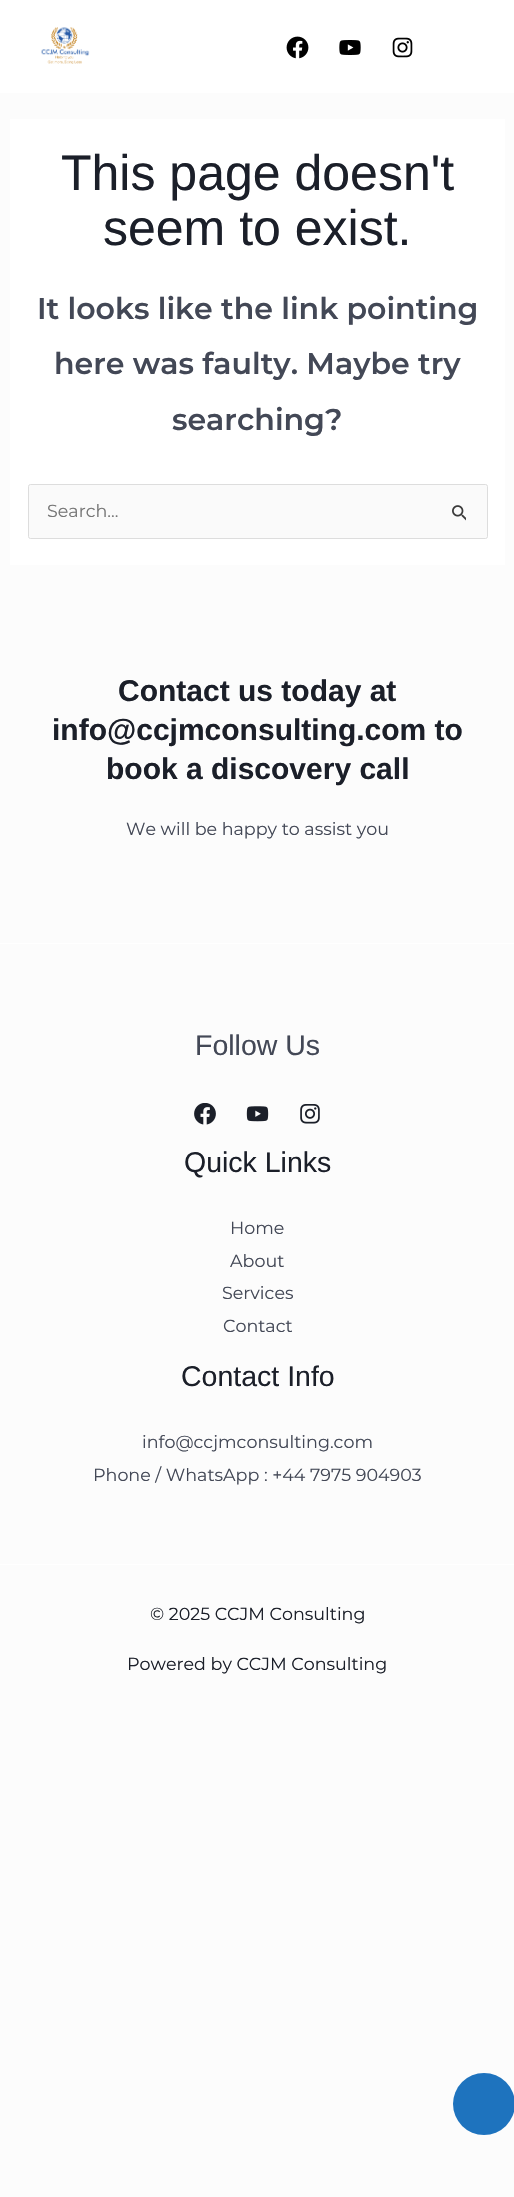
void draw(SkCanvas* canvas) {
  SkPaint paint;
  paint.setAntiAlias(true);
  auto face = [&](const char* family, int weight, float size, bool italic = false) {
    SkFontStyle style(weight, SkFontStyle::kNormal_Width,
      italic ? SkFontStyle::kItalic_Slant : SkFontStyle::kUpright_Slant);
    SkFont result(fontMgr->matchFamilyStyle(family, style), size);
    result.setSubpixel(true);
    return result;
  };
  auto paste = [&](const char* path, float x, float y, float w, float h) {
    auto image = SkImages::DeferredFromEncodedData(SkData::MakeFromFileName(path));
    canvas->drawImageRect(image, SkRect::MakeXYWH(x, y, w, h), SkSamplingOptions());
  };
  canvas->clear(0xfffcfcfc);
  paint.setColor(0xffffffff);
  canvas->drawRect(SkRect::MakeXYWH(0, 0, 514, 93), paint);
  paste("img/1.png", 41, 27, 49, 37);
  paste("img/2.png", 286, 36, 23, 23);
  paste("img/3.png", 339, 40, 22, 15);
  paste("img/4.png", 392, 37, 21, 21);
  canvas->drawRect(SkRect::MakeXYWH(10, 119, 495, 446), paint);
  paint.setColor(0xfffafafa);
  canvas->drawRoundRect(SkRect::MakeXYWH(28.5f, 484.5f, 459, 54), 2, 2, paint);
  paint.setStroke(true);
  paint.setStrokeWidth(1);
  paint.setColor(0xffdddddd);
  canvas->drawRoundRect(SkRect::MakeXYWH(28.5f, 484.5f, 459, 54), 2, 2, paint);
  paste("img/5.png", 452, 505, 14, 16);
  paint.setStroke(false);
  paint.setColor(0xffffffff);
  canvas->drawRect(SkRect::MakeXYWH(0, 943, 514, 1), paint);
  paste("img/6.png", 194, 1103, 22, 22);
  paste("img/7.png", 246, 1106, 23, 16);
  paste("img/8.png", 300, 1104, 20, 20);
  canvas->drawRect(SkRect::MakeXYWH(0, 1564, 514, 1), paint);
  paint.setColor(0xff1e73be);
  canvas->drawCircle(484, 2104, 31, paint);
  auto f0 = face("Liberation Sans", 400, 50);
  paint.setColor(0xff1b1f29);
  canvas->drawString("This page doesn't", 61, 190, f0, paint);
  canvas->drawString("seem to exist.", 103, 245, f0, paint);
  auto f1 = face("Montserrat", 600, 30);
  paint.setColor(0xff434856);
  {
    const struct { const char* s; float x, y; } items[] = {
      {"It looks like the link pointing", 37, 319},
      {"here was faulty. Maybe try", 54, 374},
      {"searching?", 172, 430},
    };
    for (auto [s, x, y] : items) {
      canvas->drawString(s, x, y, f1, paint);
    }
  }
  auto f2 = face("Montserrat", 400, 17.5f);
  paint.setColor(0xff757575);
  canvas->drawString("Search...", 47, 517, f2, paint);
  auto f3 = face("Liberation Sans", 700, 30);
  paint.setColor(0xff1b1f29);
  {
    const struct { const char* s; float x, y; } items[] = {
      {"Contact us today at", 118, 701},
      {"info@ccjmconsulting.com to", 52, 740},
      {"book a discovery call", 106, 779},
    };
    for (auto [s, x, y] : items) {
      canvas->drawString(s, x, y, f3, paint);
    }
  }
  paint.setColor(0xff434856);
  canvas->drawString("We will be happy to assist you", 126, 835, f2, paint);
  auto f4 = face("Liberation Sans", 400, 28.5f);
  canvas->drawString("Follow Us", 195, 1055, f4, paint);
  paint.setColor(0xff1b1f29);
  canvas->drawString("Quick Links", 184, 1172, f4, paint);
  paint.setColor(0xff434856);
  {
    const struct { const char* s; float x, y; } items[] = {
      {"Home", 230, 1234},
      {"About", 230, 1267},
      {"Services", 222, 1299},
      {"Contact", 223, 1332},
    };
    for (auto [s, x, y] : items) {
      canvas->drawString(s, x, y, f2, paint);
    }
  }
  paint.setColor(0xff1b1f29);
  canvas->drawString("Contact Info", 181, 1386, f4, paint);
  paint.setColor(0xff434856);
  canvas->drawString("info@ccjmconsulting.com", 142, 1448, f2, paint);
  canvas->drawString("Phone / WhatsApp : +44 7975 904903", 93, 1481, f2, paint);
  paint.setColor(0xff1b1f29);
  canvas->drawString("© 2025 CCJM Consulting", 150, 1620, f2, paint);
  canvas->drawString("Powered by CCJM Consulting", 127, 1670, f2, paint);
}
